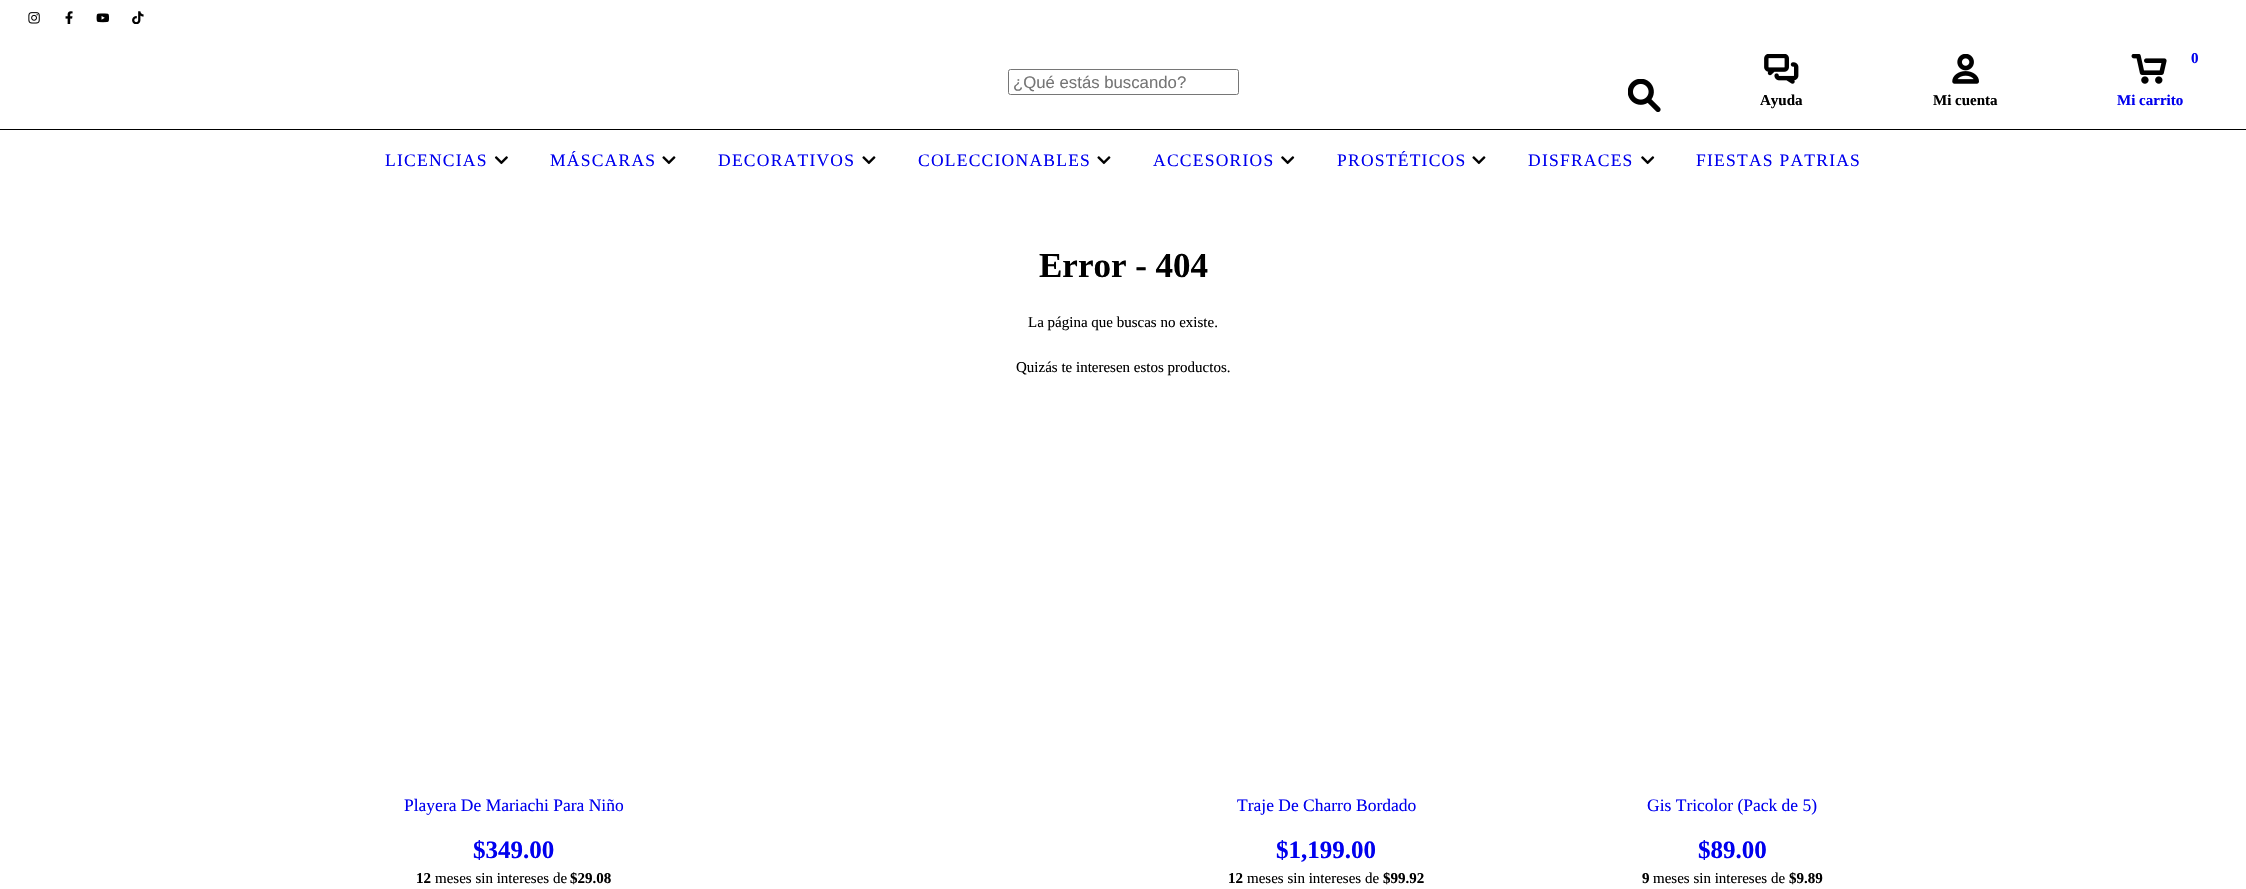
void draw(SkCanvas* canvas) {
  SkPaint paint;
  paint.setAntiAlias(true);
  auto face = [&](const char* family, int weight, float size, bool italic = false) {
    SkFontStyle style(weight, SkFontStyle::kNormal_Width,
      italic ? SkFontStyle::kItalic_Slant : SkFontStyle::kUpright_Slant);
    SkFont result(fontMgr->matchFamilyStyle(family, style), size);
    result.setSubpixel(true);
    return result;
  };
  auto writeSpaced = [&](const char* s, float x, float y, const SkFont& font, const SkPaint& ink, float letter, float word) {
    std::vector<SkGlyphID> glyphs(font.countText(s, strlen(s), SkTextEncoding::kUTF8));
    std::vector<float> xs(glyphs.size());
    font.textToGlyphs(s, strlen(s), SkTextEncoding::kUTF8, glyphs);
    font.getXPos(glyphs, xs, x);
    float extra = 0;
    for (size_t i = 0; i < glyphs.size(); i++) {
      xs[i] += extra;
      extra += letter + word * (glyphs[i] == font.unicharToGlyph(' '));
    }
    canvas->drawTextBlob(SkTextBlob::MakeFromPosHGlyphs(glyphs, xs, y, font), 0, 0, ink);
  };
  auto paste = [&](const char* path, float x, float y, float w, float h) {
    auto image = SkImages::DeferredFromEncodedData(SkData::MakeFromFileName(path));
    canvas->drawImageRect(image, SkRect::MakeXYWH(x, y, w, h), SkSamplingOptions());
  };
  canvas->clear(0xffffffff);
  paste("img/1.png", 28, 12, 12, 12);
  paste("img/2.png", 65, 11, 8, 13);
  paste("img/3.png", 96, 13, 13, 10);
  paste("img/4.png", 132, 11, 12, 13);
  paint.setStroke(true);
  paint.setStrokeWidth(1);
  paint.setColor(0xff767676);
  canvas->drawRoundRect(SkRect::MakeXYWH(1008.5f, 69.5f, 230, 25), 2, 2, paint);
  paste("img/5.png", 1628, 79, 33, 33);
  paste("img/6.png", 1764, 54, 35, 30);
  paste("img/7.png", 1952, 54, 27, 30);
  paste("img/8.png", 2131, 54, 36, 30);
  paint.setStroke(false);
  paint.setColor(0xff000000);
  canvas->drawRect(SkRect::MakeXYWH(0, 129, 2246, 1), paint);
  paste("img/9.png", 494, 156, 14, 9);
  paste("img/10.png", 662, 156, 14, 9);
  paste("img/10.png", 862, 156, 14, 9);
  paste("img/10.png", 1097, 156, 14, 9);
  paste("img/11.png", 1281, 156, 14, 9);
  paste("img/10.png", 1472, 156, 14, 9);
  paste("img/11.png", 1641, 156, 14, 9);
  auto f0 = face("Liberation Sans", 400, 16.75f);
  paint.setColor(0xff757575);
  canvas->drawString("¿Qué estás buscando?", 1013, 88, f0, paint);
  auto f1 = face("Liberation Serif", 700, 15);
  paint.setColor(0xff000000);
  canvas->drawString("Ayuda", 1760, 105, f1, paint);
  canvas->drawString("Mi cuenta", 1933, 105, f1, paint);
  paint.setColor(0xff0000ee);
  canvas->drawString("0", 2191, 63, f1, paint);
  canvas->drawString("Mi carrito", 2117, 105, f1, paint);
  auto f2 = face("Liberation Serif", 400, 17.5f);
  {
    const struct { const char* s; float x, y; } items[] = {
      {"LICENCIAS", 385, 166},
      {"MÁSCARAS", 550, 166},
      {"DECORATIVOS", 718, 166},
      {"COLECCIONABLES", 918, 166},
      {"ACCESORIOS", 1153, 166},
      {"PROSTÉTICOS", 1337, 166},
      {"DISFRACES", 1528, 166},
      {"FIESTAS PATRIAS", 1696, 166},
    };
    for (auto [s, x, y] : items) {
      writeSpaced(s, x, y, f2, paint, 1.25f, 0);
    }
  }
  auto f3 = face("Liberation Serif", 700, 35);
  paint.setColor(0xff000000);
  canvas->drawString("Error - 404", 1039, 277, f3, paint);
  auto f4 = face("Liberation Serif", 400, 15);
  canvas->drawString("La página que buscas no existe.", 1028, 327, f4, paint);
  canvas->drawString("Quizás te interesen estos productos.", 1016, 372, f4, paint);
  paint.setColor(0xff0000ee);
  canvas->drawString("Playera De Mariachi Para Niño", 404, 811, f2, paint);
  auto f5 = face("Liberation Serif", 700, 25);
  canvas->drawString("$349.00", 473, 858, f5, paint);
  paint.setColor(0xff000000);
  canvas->drawString("12", 416, 883, f1, paint);
  canvas->drawString("meses sin intereses de", 435, 883, f4, paint);
  canvas->drawString("$29.08", 570, 883, f1, paint);
  paint.setColor(0xff0000ee);
  canvas->drawString("Traje De Charro Bordado", 1237, 811, f2, paint);
  canvas->drawString("$1,199.00", 1276, 858, f5, paint);
  paint.setColor(0xff000000);
  canvas->drawString("12", 1228, 883, f1, paint);
  canvas->drawString("meses sin intereses de", 1247, 883, f4, paint);
  canvas->drawString("$99.92", 1383, 883, f1, paint);
  paint.setColor(0xff0000ee);
  canvas->drawString("Gis Tricolor (Pack de 5)", 1647, 811, f2, paint);
  canvas->drawString("$89.00", 1698, 858, f5, paint);
  paint.setColor(0xff000000);
  canvas->drawString("9", 1642, 883, f1, paint);
  canvas->drawString("meses sin intereses de", 1653, 883, f4, paint);
  canvas->drawString("$9.89", 1789, 883, f1, paint);
}
